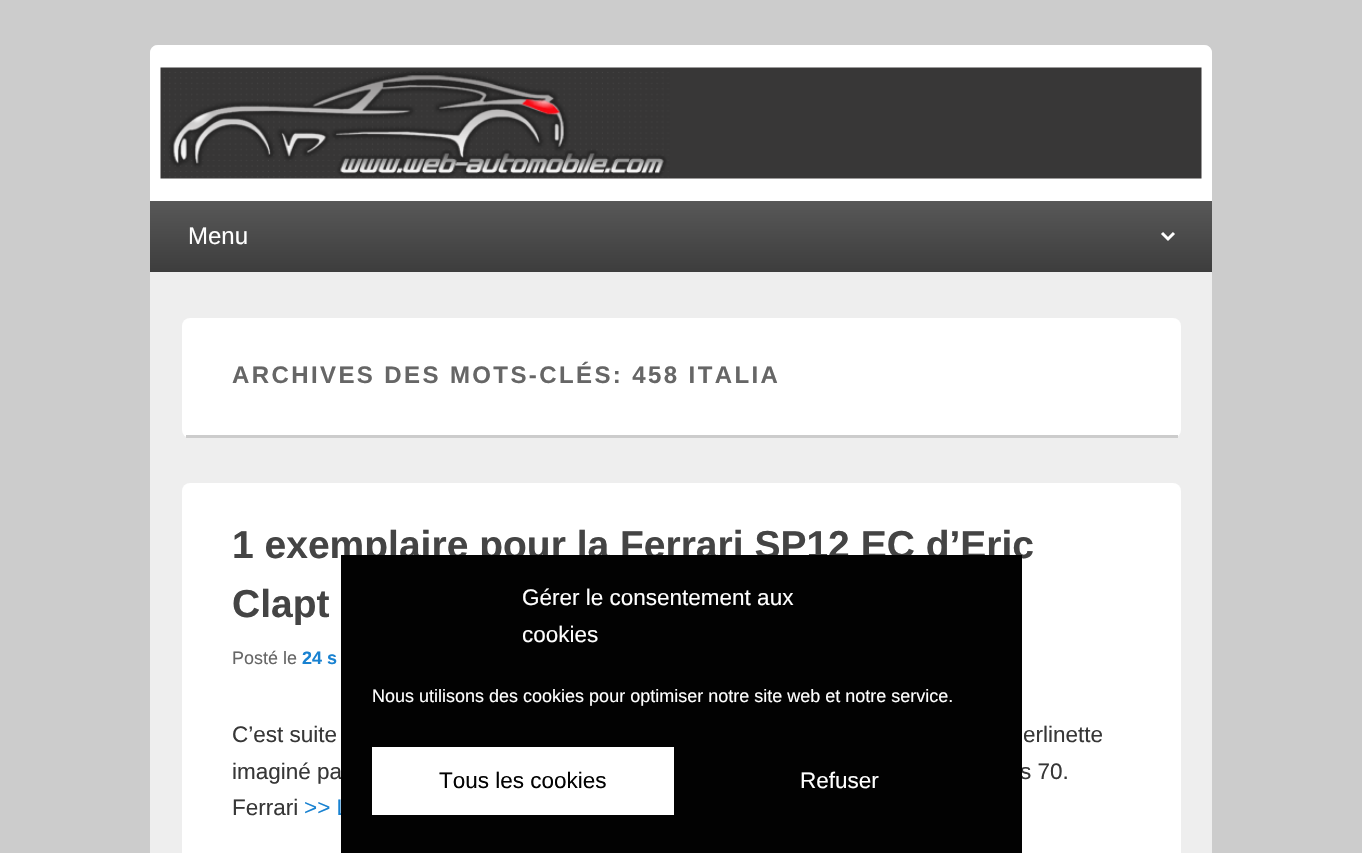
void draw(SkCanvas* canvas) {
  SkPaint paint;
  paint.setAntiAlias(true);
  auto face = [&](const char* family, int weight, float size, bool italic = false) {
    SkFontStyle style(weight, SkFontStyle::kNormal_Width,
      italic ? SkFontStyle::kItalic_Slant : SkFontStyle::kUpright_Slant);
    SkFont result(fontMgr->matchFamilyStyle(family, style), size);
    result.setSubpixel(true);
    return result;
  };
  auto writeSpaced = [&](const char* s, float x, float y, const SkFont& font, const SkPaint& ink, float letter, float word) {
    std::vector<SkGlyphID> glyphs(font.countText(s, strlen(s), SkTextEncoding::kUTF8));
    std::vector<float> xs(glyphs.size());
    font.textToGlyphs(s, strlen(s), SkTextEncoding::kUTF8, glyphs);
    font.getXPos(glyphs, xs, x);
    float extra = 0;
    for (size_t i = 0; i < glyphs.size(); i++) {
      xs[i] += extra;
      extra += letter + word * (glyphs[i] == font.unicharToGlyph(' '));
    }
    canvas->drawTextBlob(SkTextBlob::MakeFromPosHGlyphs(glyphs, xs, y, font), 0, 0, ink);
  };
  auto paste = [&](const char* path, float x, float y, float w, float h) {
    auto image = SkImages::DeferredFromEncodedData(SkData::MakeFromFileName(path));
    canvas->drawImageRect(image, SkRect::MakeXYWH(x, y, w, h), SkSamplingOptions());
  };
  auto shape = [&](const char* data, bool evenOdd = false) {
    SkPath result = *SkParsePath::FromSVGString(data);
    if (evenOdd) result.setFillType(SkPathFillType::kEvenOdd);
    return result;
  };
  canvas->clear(0xffcccccc);
  paint.setColor(0xffeeeeee);
  canvas->drawRoundRect(SkRect::MakeXYWH(150, 45, 1062, 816), 8, 8, paint);
  paint.setColor(0xffffffff);
  canvas->drawPath(shape("M158 45H1204C1208.5 45 1212 48.5 1212 53V201H150V53C150 48.5 153.5 45 158 45Z"), paint);
  paste("img/1.png", 160, 67, 1042, 112);
  {
    const SkColor colors[] = {0xff585858, 0xff3d3d3d};
    const float stops[] = {0, 1};
    const SkPoint ends[] = {{681, 201}, {681, 272}};
    paint.setShader(SkGradientShader::MakeLinear(ends, colors, stops, 2, SkTileMode::kClamp));
    paint.setAlpha(255);
  }
  canvas->drawRect(SkRect::MakeXYWH(150, 201, 1062, 71), paint);
  paint.setStroke(true);
  paint.setStrokeWidth(3);
  paint.setShader(nullptr);
  paint.setColor(0xffffffff);
  canvas->drawPath(shape("M1162 233L1168 239L1174 233"), paint);
  paint.setStroke(false);
  canvas->drawRoundRect(SkRect::MakeXYWH(182, 318, 999, 120), 8, 8, paint);
  paint.setColor(0xffcccccc);
  canvas->drawRect(SkRect::MakeXYWH(186, 435, 992, 3), paint);
  paint.setColor(0xffffffff);
  canvas->drawRoundRect(SkRect::MakeXYWH(182, 483, 999, 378), 8, 8, paint);
  auto f0 = face("Liberation Sans", 400, 24);
  canvas->drawString("Menu", 188, 244, f0, paint);
  auto f1 = face("Liberation Sans", 700, 24);
  paint.setColor(0xff666666);
  writeSpaced("ARCHIVES DES MOTS-CLÉS: 458 ITALIA", 232, 383, f1, paint, 2.4f, 0);
  auto f2 = face("Liberation Sans", 700, 39);
  paint.setColor(0xff444444);
  canvas->drawString("1 exemplaire pour la Ferrari SP12 EC d’Eric", 232, 558, f2, paint);
  canvas->drawString("Clapt", 232, 617, f2, paint);
  auto f3 = face("Liberation Sans", 400, 18);
  paint.setColor(0xff666666);
  canvas->drawString("Posté le", 232, 664, f3, paint);
  auto f4 = face("Liberation Sans", 700, 18);
  paint.setColor(0xff1982d1);
  canvas->drawString("24 s", 302, 664, f4, paint);
  auto f5 = face("Liberation Sans", 400, 22.5f);
  paint.setColor(0xff373737);
  {
    const struct { const char* s; float x, y; } items[] = {
      {"C’est suite", 232, 742},
      {"erlinette", 1023, 742},
      {"imaginé pa", 232, 779},
      {"s 70.", 1020, 779},
      {"Ferrari", 232, 815},
    };
    for (auto [s, x, y] : items) {
      canvas->drawString(s, x, y, f5, paint);
    }
  }
  paint.setColor(0xff1982d1);
  canvas->drawString(">> L", 304, 815, f5, paint);
  paint.setColor(0xff020202);
  canvas->drawRect(SkRect::MakeXYWH(341, 555, 681, 298), paint);
  paint.setColor(0xffffffff);
  canvas->drawString("Gérer le consentement aux", 522, 605, f5, paint);
  canvas->drawString("cookies", 522, 642, f5, paint);
  canvas->drawString("Nous utilisons des cookies pour optimiser notre site web et notre service.", 372, 702, f3, paint);
  canvas->drawRect(SkRect::MakeXYWH(372, 747, 302, 68), paint);
  paint.setColor(0xff020202);
  canvas->drawString("Tous les cookies", 439, 788, f5, paint);
  paint.setColor(0xffffffff);
  canvas->drawString("Refuser", 800, 788, f5, paint);
}
